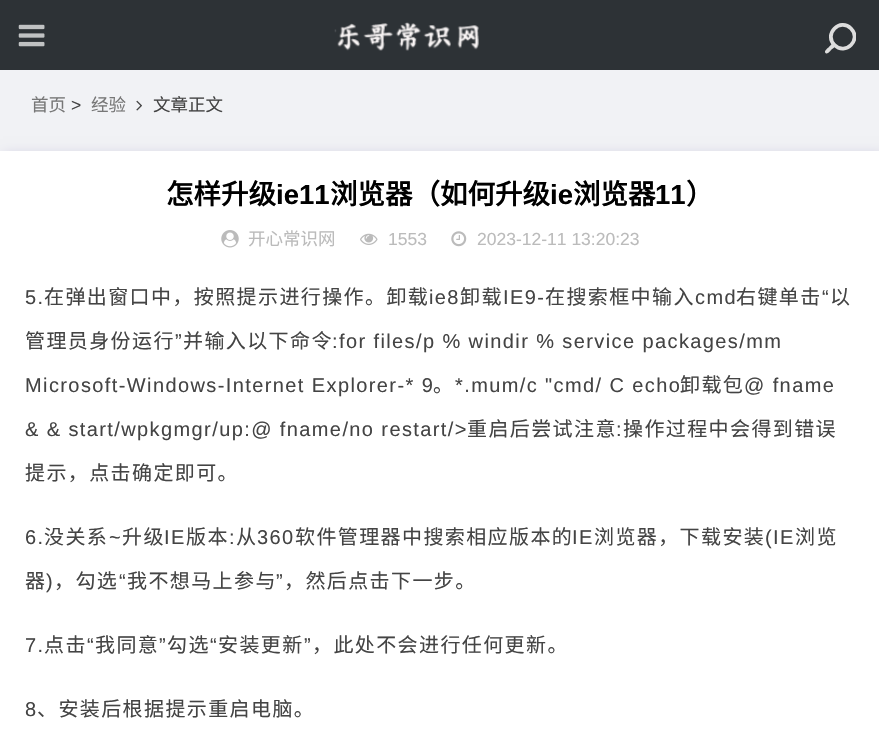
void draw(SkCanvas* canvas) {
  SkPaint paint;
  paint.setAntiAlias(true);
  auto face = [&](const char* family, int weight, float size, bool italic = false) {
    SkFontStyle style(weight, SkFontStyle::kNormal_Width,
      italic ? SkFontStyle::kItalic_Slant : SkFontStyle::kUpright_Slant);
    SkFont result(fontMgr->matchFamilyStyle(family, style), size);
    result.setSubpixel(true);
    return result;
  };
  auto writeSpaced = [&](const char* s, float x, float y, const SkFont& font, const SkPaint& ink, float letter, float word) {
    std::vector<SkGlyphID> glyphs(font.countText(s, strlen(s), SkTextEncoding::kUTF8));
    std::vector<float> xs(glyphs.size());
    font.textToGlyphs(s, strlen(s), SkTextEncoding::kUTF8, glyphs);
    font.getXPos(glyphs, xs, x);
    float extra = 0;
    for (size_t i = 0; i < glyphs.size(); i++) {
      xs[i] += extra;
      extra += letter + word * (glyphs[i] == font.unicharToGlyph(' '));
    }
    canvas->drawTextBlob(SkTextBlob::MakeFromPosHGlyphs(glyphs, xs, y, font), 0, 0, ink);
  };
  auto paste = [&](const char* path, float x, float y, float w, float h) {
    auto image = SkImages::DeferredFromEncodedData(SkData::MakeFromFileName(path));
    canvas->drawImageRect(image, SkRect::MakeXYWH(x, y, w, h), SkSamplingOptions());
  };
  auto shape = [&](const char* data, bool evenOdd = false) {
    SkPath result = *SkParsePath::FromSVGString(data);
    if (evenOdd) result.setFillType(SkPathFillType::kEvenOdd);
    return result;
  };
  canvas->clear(0xfff1f2f5);
  paint.setColor(0xff2d3236);
  canvas->drawRect(SkRect::MakeXYWH(0, 0, 879, 70), paint);
  paste("img/1.png", 18, 24, 27, 23);
  paste("img/2.png", 334, 22, 145, 29);
  paint.setColor(0xffdddddd);
  canvas->drawPath(shape("M835 43.5C837.5 45.5 833 48.5 831.5 49.5C830.5 50.5 827.5 55 825.5 53C823.5 51 828 48 829 47C830 46 833 41.5 835 43.5Z"), paint);
  canvas->save();
  canvas->clipPath(shape("M777 13H848C852.5 13 856 16.5 856 21V50C856 54.5 852.5 58 848 58H777C772.5 58 769 54.5 769 50V21C769 16.5 772.5 13 777 13Z"), true);
  paint.setStroke(true);
  paint.setStrokeWidth(3.8f);
  canvas->drawPath(shape("M851 28.5C862 39.5 845.5 56 834.5 45C823.5 34 840 17.5 851 28.5Z"), paint);
  canvas->restore();
  paste("img/3.png", 136, 100, 6, 11);
  paint.setStroke(false);
  paint.setColor(0xffcfcde0);
  paint.setMaskFilter(SkMaskFilter::MakeBlur(kNormal_SkBlurStyle, 6));
  canvas->drawRect(SkRect::MakeXYWH(3, 154, 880, 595), paint);
  paint.setMaskFilter(nullptr);
  paint.setColor(0xffffffff);
  canvas->drawRect(SkRect::MakeXYWH(0, 151, 879, 580), paint);
  paste("img/4.png", 221, 230, 18, 18);
  paste("img/5.png", 360, 233, 18, 12);
  paste("img/6.png", 451, 231, 16, 16);
  auto f0 = face("Noto Sans CJK SC", 400, 17.5f);
  paint.setColor(0xff777777);
  canvas->drawString("首页", 31, 111, f0, paint);
  auto f1 = face("Liberation Sans", 400, 17.5f);
  paint.setColor(0xff444444);
  canvas->drawString(">", 71, 111, f1, paint);
  paint.setColor(0xff777777);
  canvas->drawString("经验", 91, 111, f0, paint);
  paint.setColor(0xff444444);
  canvas->drawString("文章正文", 153, 111, f0, paint);
  auto f2 = face("Noto Sans CJK SC", 700, 27.5f);
  paint.setColor(0xff000000);
  canvas->drawString("怎样升级", 166, 204, f2, paint);
  auto f3 = face("Liberation Sans", 700, 27.5f);
  canvas->drawString("ie11", 276, 204, f3, paint);
  canvas->drawString("浏览器（如何升级", 330, 204, f2, paint);
  canvas->drawString("ie", 550, 204, f3, paint);
  canvas->drawString("浏览器", 573, 204, f2, paint);
  canvas->drawString("11", 655, 204, f3, paint);
  canvas->drawString("）", 686, 204, f2, paint);
  paint.setColor(0xffbbbbbb);
  canvas->drawString("开心常识网", 248, 245, f0, paint);
  canvas->drawString("1553", 388, 245, f1, paint);
  canvas->drawString("2023-12-11 13:20:23", 477, 245, f1, paint);
  auto f4 = face("Liberation Sans", 400, 20);
  paint.setColor(0xff444444);
  writeSpaced("5.", 25, 304, f4, paint, 1.4f, 0);
  auto f5 = face("Noto Sans CJK SC", 400, 20);
  writeSpaced("在弹出窗口中，按照提示进行操作。卸载", 44, 304, f5, paint, 1.4f, 0);
  writeSpaced("ie8", 429, 304, f4, paint, 1.4f, 0);
  writeSpaced("卸载", 460, 304, f5, paint, 1.4f, 0);
  writeSpaced("IE9-", 503, 304, f4, paint, 1.4f, 0);
  writeSpaced("在搜索框中输入", 545, 304, f5, paint, 1.4f, 0);
  writeSpaced("cmd", 695, 304, f4, paint, 1.4f, 0);
  writeSpaced("右键单击", 736, 304, f5, paint, 1.4f, 0);
  writeSpaced("“", 822, 304, f4, paint, 1.4f, 0);
  writeSpaced("以", 830, 304, f5, paint, 1.4f, 0);
  writeSpaced("管理员身份运行", 25, 348, f5, paint, 1.4f, 0);
  writeSpaced("”", 175, 348, f4, paint, 1.4f, 0);
  writeSpaced("并输入以下命令", 183, 348, f5, paint, 1.4f, 0);
  writeSpaced(":for files/p % windir % service packages/mm", 332, 348, f4, paint, 1.4f, 0);
  writeSpaced("Microsoft-Windows-Internet Explorer-* 9", 25, 392, f4, paint, 1.4f, 0);
  writeSpaced("。", 433, 392, f5, paint, 1.4f, 0);
  writeSpaced("*.mum/c \"cmd/ C echo", 455, 392, f4, paint, 1.4f, 0);
  writeSpaced("卸载包", 680, 392, f5, paint, 1.4f, 0);
  writeSpaced("@ fname", 744, 392, f4, paint, 1.4f, 0);
  writeSpaced("& & start/wpkgmgr/up:@ fname/no restart/>", 25, 436, f4, paint, 1.4f, 0);
  writeSpaced("重启后尝试注意", 467, 436, f5, paint, 1.4f, 0);
  writeSpaced(":", 616, 436, f4, paint, 1.4f, 0);
  writeSpaced("操作过程中会得到错误", 623, 436, f5, paint, 1.4f, 0);
  writeSpaced("提示，点击确定即可。", 25, 480, f5, paint, 1.4f, 0);
  writeSpaced("6.", 25, 544, f4, paint, 1.4f, 0);
  writeSpaced("没关系", 44, 544, f5, paint, 1.4f, 0);
  writeSpaced("~", 109, 544, f4, paint, 1.4f, 0);
  writeSpaced("升级", 122, 544, f5, paint, 1.4f, 0);
  writeSpaced("IE", 164, 544, f4, paint, 1.4f, 0);
  writeSpaced("版本", 186, 544, f5, paint, 1.4f, 0);
  writeSpaced(":", 229, 544, f4, paint, 1.4f, 0);
  writeSpaced("从", 236, 544, f5, paint, 1.4f, 0);
  writeSpaced("360", 257, 544, f4, paint, 1.4f, 0);
  writeSpaced("软件管理器中搜索相应版本的", 295, 544, f5, paint, 1.4f, 0);
  writeSpaced("IE", 572, 544, f4, paint, 1.4f, 0);
  writeSpaced("浏览器，下载安装", 594, 544, f5, paint, 1.4f, 0);
  writeSpaced("(IE", 765, 544, f4, paint, 1.4f, 0);
  writeSpaced("浏览", 795, 544, f5, paint, 1.4f, 0);
  writeSpaced("器", 25, 588, f5, paint, 1.4f, 0);
  writeSpaced(")", 46, 588, f4, paint, 1.4f, 0);
  writeSpaced("，勾选", 54, 588, f5, paint, 1.4f, 0);
  writeSpaced("“", 119, 588, f4, paint, 1.4f, 0);
  writeSpaced("我不想马上参与", 127, 588, f5, paint, 1.4f, 0);
  writeSpaced("”", 276, 588, f4, paint, 1.4f, 0);
  writeSpaced("，然后点击下一步。", 284, 588, f5, paint, 1.4f, 0);
  writeSpaced("7.", 25, 652, f4, paint, 1.4f, 0);
  writeSpaced("点击", 44, 652, f5, paint, 1.4f, 0);
  writeSpaced("“", 87, 652, f4, paint, 1.4f, 0);
  writeSpaced("我同意", 95, 652, f5, paint, 1.4f, 0);
  writeSpaced("”", 159, 652, f4, paint, 1.4f, 0);
  writeSpaced("勾选", 167, 652, f5, paint, 1.4f, 0);
  writeSpaced("“", 210, 652, f4, paint, 1.4f, 0);
  writeSpaced("安装更新", 218, 652, f5, paint, 1.4f, 0);
  writeSpaced("”", 304, 652, f4, paint, 1.4f, 0);
  writeSpaced("，此处不会进行任何更新。", 312, 652, f5, paint, 1.4f, 0);
  writeSpaced("8", 25, 716, f4, paint, 1.4f, 0);
  writeSpaced("、安装后根据提示重启电脑。", 37, 716, f5, paint, 1.4f, 0);
}
